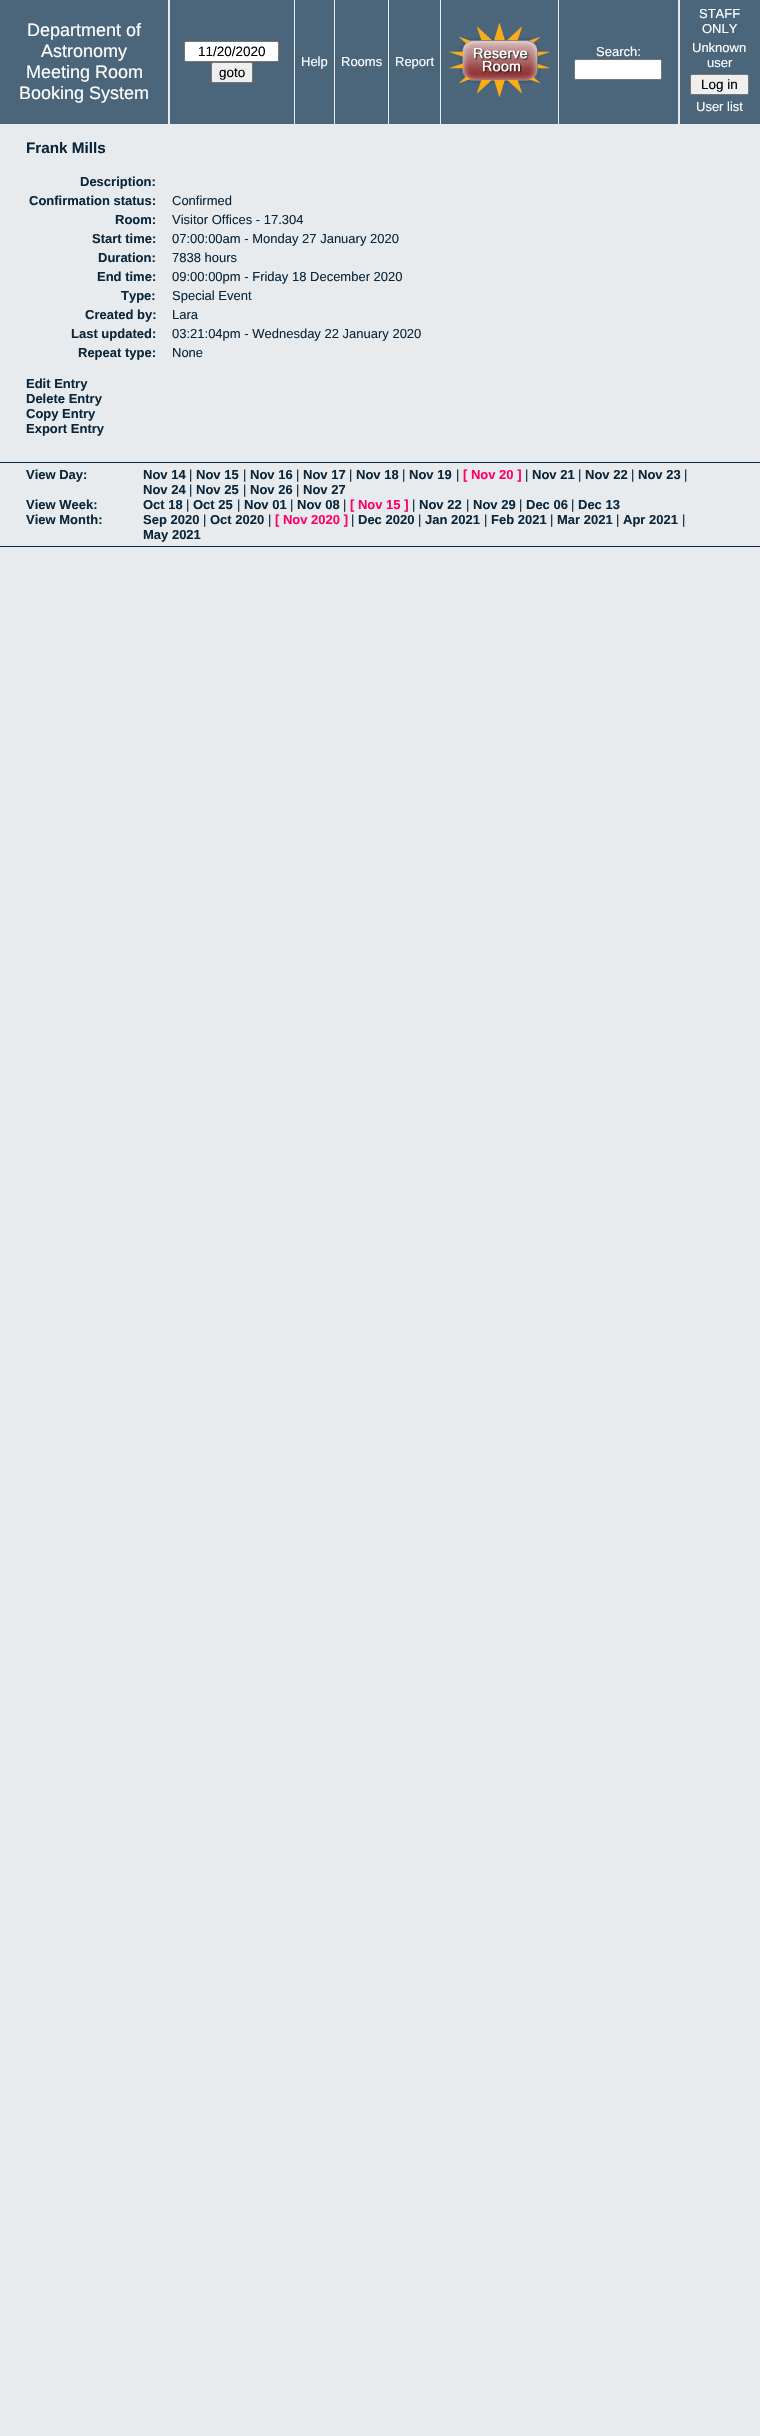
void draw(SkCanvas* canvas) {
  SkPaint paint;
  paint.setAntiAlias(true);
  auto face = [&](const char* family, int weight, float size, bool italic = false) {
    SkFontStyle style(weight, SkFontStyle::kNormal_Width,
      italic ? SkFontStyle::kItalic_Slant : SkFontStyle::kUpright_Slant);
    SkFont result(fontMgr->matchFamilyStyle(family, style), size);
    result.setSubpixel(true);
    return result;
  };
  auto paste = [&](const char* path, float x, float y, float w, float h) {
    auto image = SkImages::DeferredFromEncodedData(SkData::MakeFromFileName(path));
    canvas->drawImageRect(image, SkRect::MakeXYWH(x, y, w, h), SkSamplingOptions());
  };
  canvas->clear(0xffe7ebee);
  paint.setColor(0xff4b667b);
  canvas->drawRect(SkRect::MakeXYWH(0, 0, 168, 124), paint);
  canvas->drawRect(SkRect::MakeXYWH(170, 0, 124, 124), paint);
  paint.setColor(0xffffffff);
  canvas->drawRoundRect(SkRect::MakeXYWH(184.5f, 41.5f, 94, 20), 1.5f, 1.5f, paint);
  paint.setStroke(true);
  paint.setStrokeWidth(1);
  paint.setColor(0xff767676);
  canvas->drawRoundRect(SkRect::MakeXYWH(184.5f, 41.5f, 94, 20), 1.5f, 1.5f, paint);
  paint.setStroke(false);
  paint.setColor(0xffefefef);
  canvas->drawRoundRect(SkRect::MakeXYWH(211.5f, 62.5f, 41, 20), 1.5f, 1.5f, paint);
  paint.setStroke(true);
  paint.setColor(0xff767676);
  canvas->drawRoundRect(SkRect::MakeXYWH(211.5f, 62.5f, 41, 20), 1.5f, 1.5f, paint);
  paint.setStroke(false);
  paint.setColor(0xff4b667b);
  canvas->drawRect(SkRect::MakeXYWH(441, 0, 117, 124), paint);
  paste("img/1.png", 448, 22, 103, 76);
  canvas->drawRect(SkRect::MakeXYWH(559, 0, 119, 124), paint);
  paint.setColor(0xffffffff);
  canvas->drawRoundRect(SkRect::MakeXYWH(574.5f, 59.5f, 87, 20), 1.5f, 1.5f, paint);
  paint.setStroke(true);
  paint.setColor(0xff767676);
  canvas->drawRoundRect(SkRect::MakeXYWH(574.5f, 59.5f, 87, 20), 1.5f, 1.5f, paint);
  paint.setStroke(false);
  paint.setColor(0xff4b667b);
  canvas->drawRect(SkRect::MakeXYWH(680, 0, 80, 124), paint);
  paint.setColor(0xffefefef);
  canvas->drawRoundRect(SkRect::MakeXYWH(690.5f, 74.5f, 58, 20), 1.5f, 1.5f, paint);
  paint.setStroke(true);
  paint.setColor(0xff767676);
  canvas->drawRoundRect(SkRect::MakeXYWH(690.5f, 74.5f, 58, 20), 1.5f, 1.5f, paint);
  paint.setStroke(false);
  {
    const struct { float x, y, w, h; SkColor color; } items[] = {
      {295, 0, 39, 124, 0xff4b667b},
      {335, 0, 53, 124, 0xff4b667b},
      {389, 0, 51, 124, 0xff4b667b},
      {0, 462, 760, 1, 0xff0b263b},
      {0, 546, 760, 1, 0xff0b263b},
    };
    for (auto [x, y, w, h, color] : items) {
      paint.setColor(color);
      canvas->drawRect(SkRect::MakeXYWH(x, y, w, h), paint);
    }
  }
  auto f0 = face("Liberation Sans", 400, 18);
  paint.setColor(0xffffffff);
  {
    const struct { const char* s; float x, y; } items[] = {
      {"Department of", 27, 36},
      {"Astronomy", 41, 57},
      {"Meeting Room", 26, 78},
      {"Booking System", 19, 99},
    };
    for (auto [s, x, y] : items) {
      canvas->drawString(s, x, y, f0, paint);
    }
  }
  auto f1 = face("Liberation Sans", 400, 13.5f);
  paint.setColor(0xff000000);
  canvas->drawString("11/20/2020", 198, 56, f1, paint);
  canvas->drawString("goto", 219, 77, f1, paint);
  auto f2 = face("Liberation Sans", 400, 13);
  paint.setColor(0xffffffff);
  {
    const struct { const char* s; float x, y; } items[] = {
      {"Search:", 596, 56},
      {"STAFF", 699, 18},
      {"ONLY", 702, 33},
      {"Unknown", 692, 52},
      {"user", 707, 67},
    };
    for (auto [s, x, y] : items) {
      canvas->drawString(s, x, y, f2, paint);
    }
  }
  paint.setColor(0xff000000);
  canvas->drawString("Log in", 701, 89, f1, paint);
  paint.setColor(0xffffffff);
  {
    const struct { const char* s; float x, y; } items[] = {
      {"User list", 696, 111},
      {"Help", 301, 66},
      {"Rooms", 341, 66},
      {"Report", 395, 66},
    };
    for (auto [s, x, y] : items) {
      canvas->drawString(s, x, y, f2, paint);
    }
  }
  auto f3 = face("Liberation Sans", 700, 15.25f);
  paint.setColor(0xff0b263b);
  canvas->drawString("Frank Mills", 26, 153, f3, paint);
  auto f4 = face("Liberation Sans", 700, 13);
  canvas->drawString("Description:", 80, 186, f4, paint);
  canvas->drawString("Confirmation status:", 29, 205, f4, paint);
  canvas->drawString("Confirmed", 172, 205, f2, paint);
  canvas->drawString("Room:", 115, 224, f4, paint);
  canvas->drawString("Visitor Offices - 17.304", 172, 224, f2, paint);
  canvas->drawString("Start time:", 92, 243, f4, paint);
  canvas->drawString("07:00:00am - Monday 27 January 2020", 172, 243, f2, paint);
  canvas->drawString("Duration:", 98, 262, f4, paint);
  canvas->drawString("7838 hours", 172, 262, f2, paint);
  canvas->drawString("End time:", 97, 281, f4, paint);
  canvas->drawString("09:00:00pm - Friday 18 December 2020", 172, 281, f2, paint);
  canvas->drawString("Type:", 121, 300, f4, paint);
  canvas->drawString("Special Event", 172, 300, f2, paint);
  canvas->drawString("Created by:", 85, 319, f4, paint);
  canvas->drawString("Lara", 172, 319, f2, paint);
  canvas->drawString("Last updated:", 71, 338, f4, paint);
  canvas->drawString("03:21:04pm - Wednesday 22 January 2020", 172, 338, f2, paint);
  canvas->drawString("Repeat type:", 78, 357, f4, paint);
  canvas->drawString("None", 172, 357, f2, paint);
  {
    const struct { const char* s; float x, y; } items[] = {
      {"Edit Entry", 26, 388},
      {"Delete Entry", 26, 403},
      {"Copy Entry", 26, 418},
      {"Export Entry", 26, 433},
      {"View Day:", 26, 479},
      {"Nov 14", 143, 479},
    };
    for (auto [s, x, y] : items) {
      canvas->drawString(s, x, y, f4, paint);
    }
  }
  canvas->drawString("|", 189, 479, f2, paint);
  canvas->drawString("Nov 15", 196, 479, f4, paint);
  canvas->drawString("|", 243, 479, f2, paint);
  canvas->drawString("Nov 16", 250, 479, f4, paint);
  canvas->drawString("|", 296, 479, f2, paint);
  canvas->drawString("Nov 17", 303, 479, f4, paint);
  canvas->drawString("|", 349, 479, f2, paint);
  canvas->drawString("Nov 18", 356, 479, f4, paint);
  canvas->drawString("|", 402, 479, f2, paint);
  canvas->drawString("Nov 19", 409, 479, f4, paint);
  canvas->drawString("|", 456, 479, f2, paint);
  paint.setColor(0xffff0066);
  canvas->drawString("[ Nov 20 ]", 463, 479, f4, paint);
  paint.setColor(0xff0b263b);
  canvas->drawString("|", 525, 479, f2, paint);
  canvas->drawString("Nov 21", 532, 479, f4, paint);
  canvas->drawString("|", 578, 479, f2, paint);
  canvas->drawString("Nov 22", 585, 479, f4, paint);
  canvas->drawString("|", 631, 479, f2, paint);
  canvas->drawString("Nov 23", 638, 479, f4, paint);
  canvas->drawString("|", 684, 479, f2, paint);
  canvas->drawString("Nov 24", 143, 494, f4, paint);
  canvas->drawString("|", 189, 494, f2, paint);
  canvas->drawString("Nov 25", 196, 494, f4, paint);
  canvas->drawString("|", 243, 494, f2, paint);
  canvas->drawString("Nov 26", 250, 494, f4, paint);
  canvas->drawString("|", 296, 494, f2, paint);
  {
    const struct { const char* s; float x, y; } items[] = {
      {"Nov 27", 303, 494},
      {"View Week:", 26, 509},
      {"Oct 18", 143, 509},
    };
    for (auto [s, x, y] : items) {
      canvas->drawString(s, x, y, f4, paint);
    }
  }
  canvas->drawString("|", 186, 509, f2, paint);
  canvas->drawString("Oct 25", 193, 509, f4, paint);
  canvas->drawString("|", 237, 509, f2, paint);
  canvas->drawString("Nov 01", 244, 509, f4, paint);
  canvas->drawString("|", 290, 509, f2, paint);
  canvas->drawString("Nov 08", 297, 509, f4, paint);
  canvas->drawString("|", 343, 509, f2, paint);
  paint.setColor(0xffff0066);
  canvas->drawString("[ Nov 15 ]", 350, 509, f4, paint);
  paint.setColor(0xff0b263b);
  canvas->drawString("|", 412, 509, f2, paint);
  canvas->drawString("Nov 22", 419, 509, f4, paint);
  canvas->drawString("|", 466, 509, f2, paint);
  canvas->drawString("Nov 29", 473, 509, f4, paint);
  canvas->drawString("|", 519, 509, f2, paint);
  canvas->drawString("Dec 06", 526, 509, f4, paint);
  canvas->drawString("|", 571, 509, f2, paint);
  {
    const struct { const char* s; float x, y; } items[] = {
      {"Dec 13", 578, 509},
      {"View Month:", 26, 524},
      {"Sep 2020", 143, 524},
    };
    for (auto [s, x, y] : items) {
      canvas->drawString(s, x, y, f4, paint);
    }
  }
  canvas->drawString("|", 203, 524, f2, paint);
  canvas->drawString("Oct 2020", 210, 524, f4, paint);
  canvas->drawString("|", 268, 524, f2, paint);
  paint.setColor(0xffff0066);
  canvas->drawString("[ Nov 2020 ]", 275, 524, f4, paint);
  paint.setColor(0xff0b263b);
  canvas->drawString("|", 351, 524, f2, paint);
  canvas->drawString("Dec 2020", 358, 524, f4, paint);
  canvas->drawString("|", 418, 524, f2, paint);
  canvas->drawString("Jan 2021", 425, 524, f4, paint);
  canvas->drawString("|", 484, 524, f2, paint);
  canvas->drawString("Feb 2021", 491, 524, f4, paint);
  canvas->drawString("|", 550, 524, f2, paint);
  canvas->drawString("Mar 2021", 557, 524, f4, paint);
  canvas->drawString("|", 616, 524, f2, paint);
  canvas->drawString("Apr 2021", 623, 524, f4, paint);
  canvas->drawString("|", 682, 524, f2, paint);
  canvas->drawString("May 2021", 143, 539, f4, paint);
}
